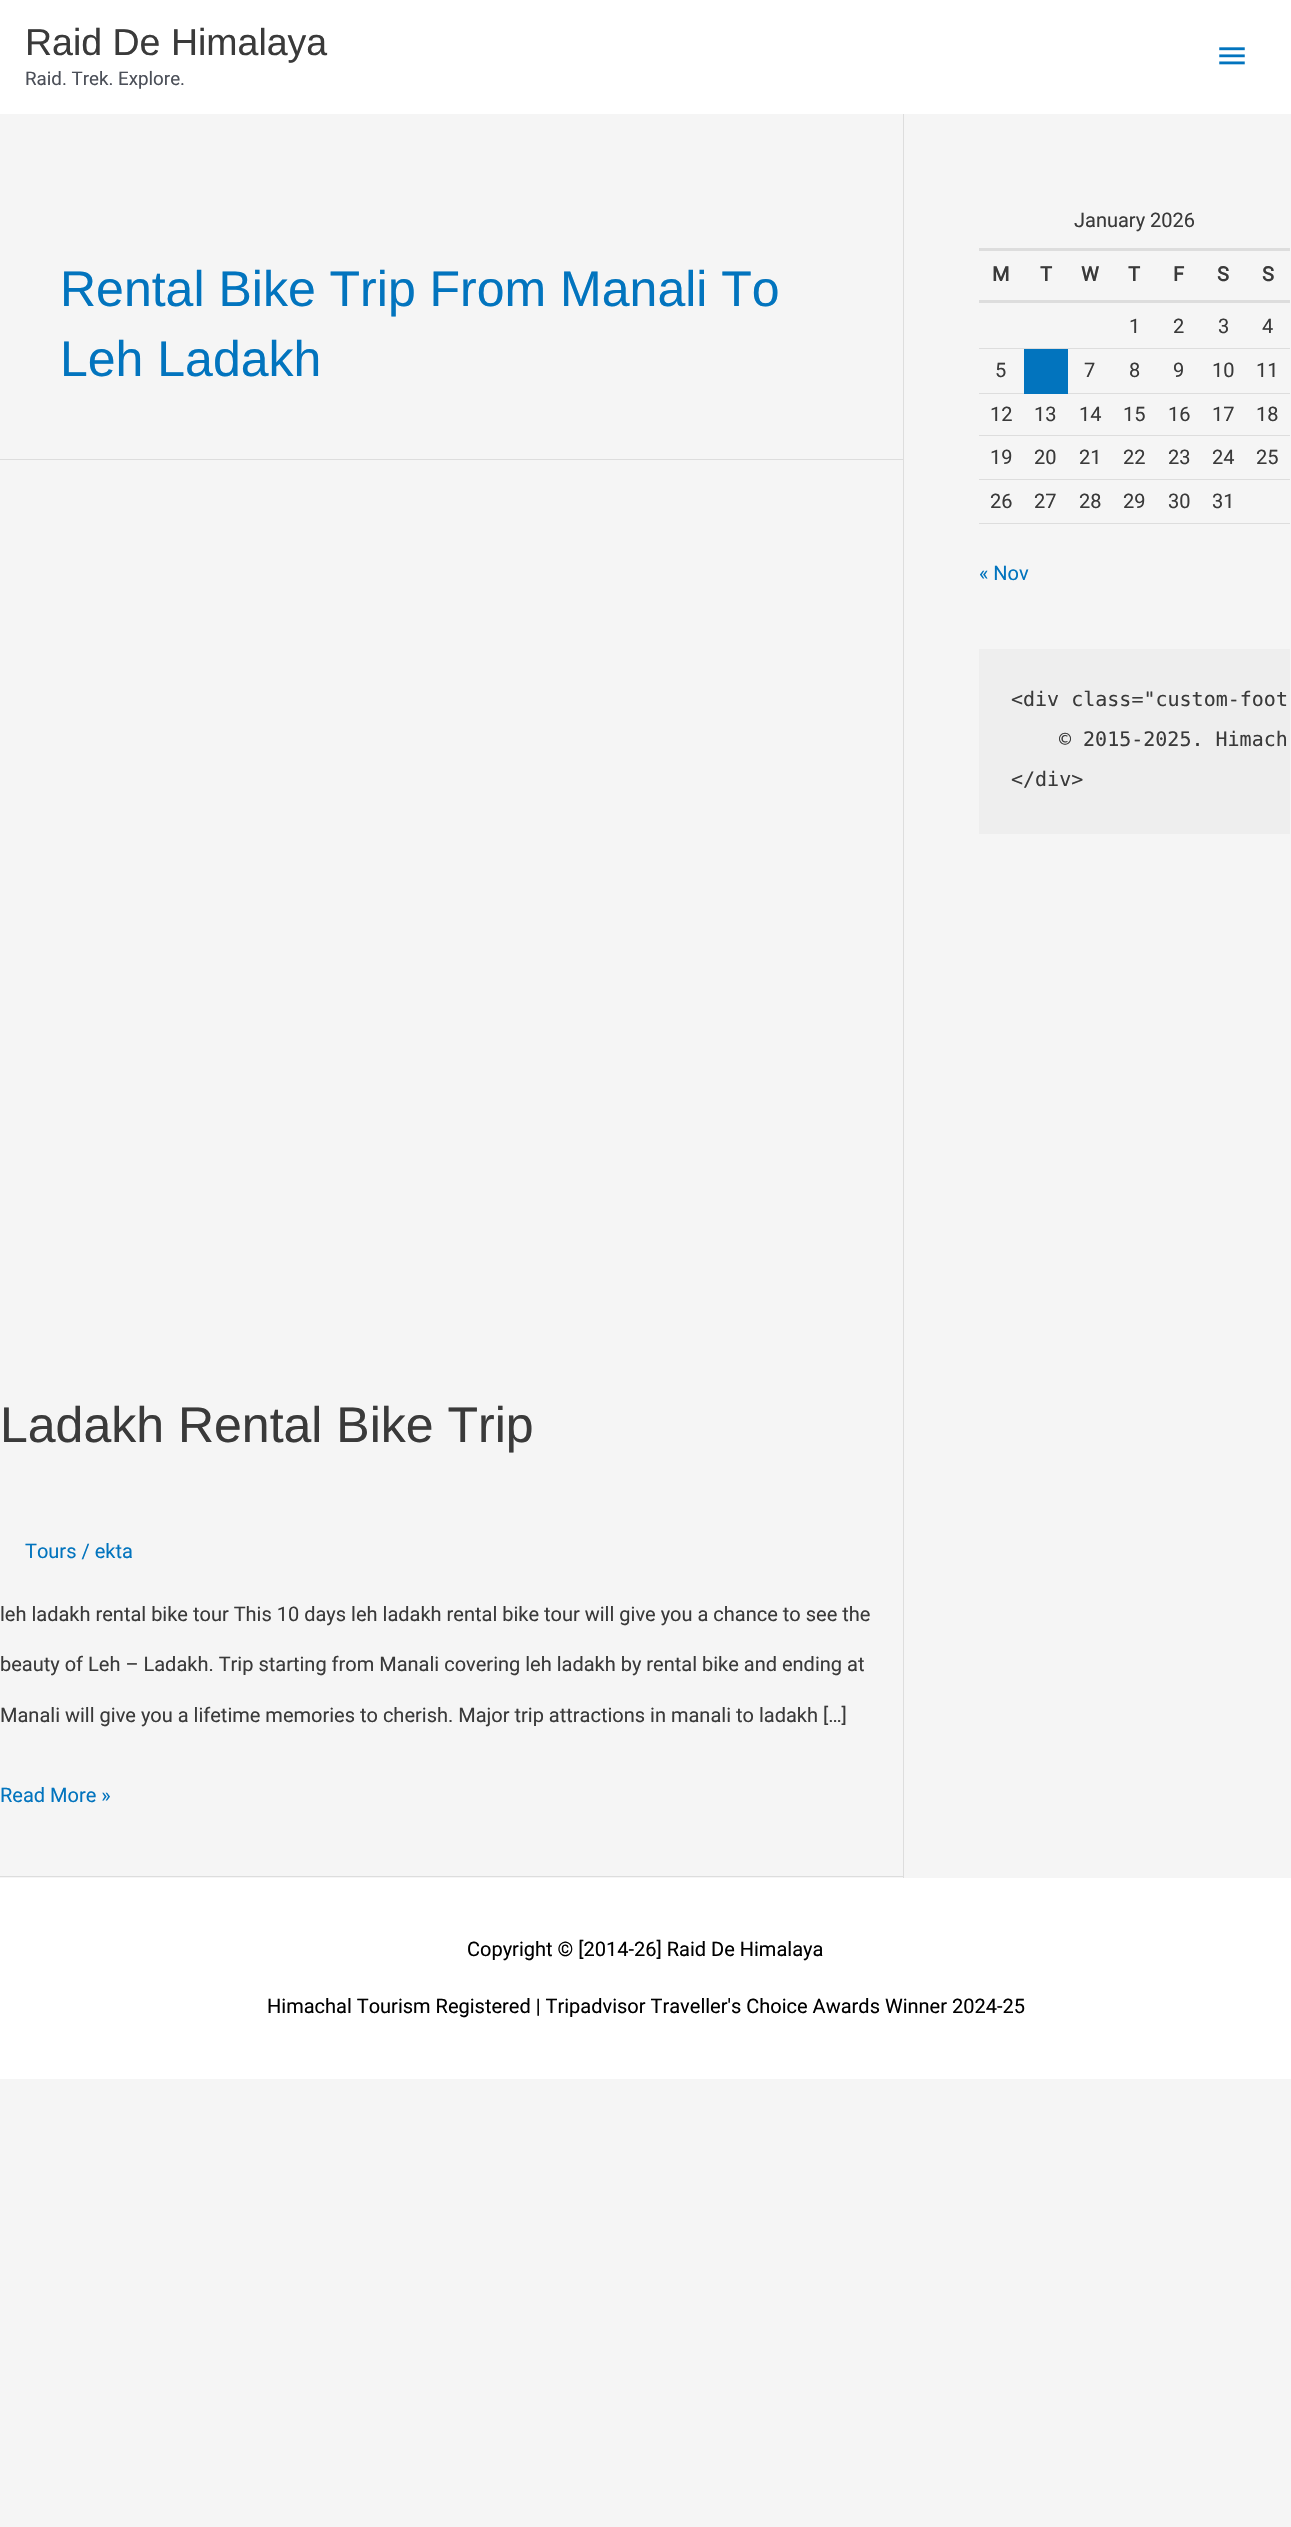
void draw(SkCanvas* canvas) {
  SkPaint paint;
  paint.setAntiAlias(true);
  auto face = [&](const char* family, int weight, float size, bool italic = false) {
    SkFontStyle style(weight, SkFontStyle::kNormal_Width,
      italic ? SkFontStyle::kItalic_Slant : SkFontStyle::kUpright_Slant);
    SkFont result(fontMgr->matchFamilyStyle(family, style), size);
    result.setSubpixel(true);
    return result;
  };
  auto paste = [&](const char* path, float x, float y, float w, float h) {
    auto image = SkImages::DeferredFromEncodedData(SkData::MakeFromFileName(path));
    canvas->drawImageRect(image, SkRect::MakeXYWH(x, y, w, h), SkSamplingOptions());
  };
  canvas->clear(0xfff5f5f5);
  paint.setColor(0xffffffff);
  canvas->drawRect(SkRect::MakeXYWH(0, 0, 1291, 114), paint);
  paste("img/1.png", 1219, 47, 26, 18);
  {
    const struct { float x, y, w, h; SkColor color; } items[] = {
      {903, 114, 1, 1764, 0xffdddddd},
      {0, 459, 903, 1, 0xffdddddd},
      {0, 1876, 903, 1, 0xffdddddd},
      {979, 248, 311, 3, 0xffdddddd},
      {979, 300, 311, 3, 0xffdddddd},
      {979, 348, 311, 1, 0xffdddddd},
      {979, 393, 45, 1, 0xffdddddd},
      {1024, 349, 44, 45, 0xff0274be},
      {1068, 393, 222, 1, 0xffdddddd},
      {979, 435, 311, 1, 0xffdddddd},
      {979, 479, 311, 1, 0xffdddddd},
      {979, 523, 311, 1, 0xffdddddd},
      {979, 649, 311, 185, 0xffeeeeee},
      {0, 1878, 1291, 201, 0xffffffff},
    };
    for (auto [x, y, w, h, color] : items) {
      paint.setColor(color);
      canvas->drawRect(SkRect::MakeXYWH(x, y, w, h), paint);
    }
  }
  auto f0 = face("Liberation Sans", 400, 37.5f);
  paint.setColor(0xff3a3a3a);
  canvas->drawString("Raid De Himalaya", 25, 55, f0, paint);
  auto f1 = face("Roboto", 400, 18.75f);
  paint.setColor(0xff4b4f58);
  canvas->drawString("Raid. Trek. Explore.", 25, 85, f1, paint);
  auto f2 = face("Liberation Sans", 400, 50);
  paint.setColor(0xff0274be);
  canvas->drawString("Rental Bike Trip From Manali To", 60, 306, f2, paint);
  canvas->drawString("Leh Ladakh", 60, 376, f2, paint);
  paint.setColor(0xff3a3a3a);
  canvas->drawString("Ladakh Rental Bike Trip", 0, 1442, f2, paint);
  auto f3 = face("Roboto", 400, 20);
  paint.setColor(0xff0274be);
  canvas->drawString("Tours / ekta", 25, 1558, f3, paint);
  paint.setColor(0xff3a3a3a);
  {
    const struct { const char* s; float x, y; } items[] = {
      {"leh ladakh rental bike tour This 10 days leh ladakh rental bike tour will give you a chance to see the", 0, 1621},
      {"beauty of Leh – Ladakh. Trip starting from Manali covering leh ladakh by rental bike and ending at", 0, 1671},
      {"Manali will give you a lifetime memories to cherish. Major trip attractions in manali to ladakh […]", 0, 1722},
    };
    for (auto [s, x, y] : items) {
      canvas->drawString(s, x, y, f3, paint);
    }
  }
  paint.setColor(0xff0274be);
  canvas->drawString("Read More »", 0, 1802, f3, paint);
  paint.setColor(0xff3a3a3a);
  canvas->drawString("January 2026", 1074, 227, f3, paint);
  auto f4 = face("Roboto", 700, 20);
  {
    const struct { const char* s; float x, y; } items[] = {
      {"M", 992, 281},
      {"T", 1040, 281},
      {"W", 1081, 281},
      {"T", 1128, 281},
      {"F", 1173, 281},
      {"S", 1217, 281},
      {"S", 1262, 281},
    };
    for (auto [s, x, y] : items) {
      canvas->drawString(s, x, y, f4, paint);
    }
  }
  {
    const struct { const char* s; float x, y; } items[] = {
      {"1", 1129, 333},
      {"2", 1173, 333},
      {"3", 1218, 333},
      {"4", 1262, 333},
      {"5", 995, 377},
      {"7", 1084, 377},
      {"8", 1129, 377},
      {"9", 1173, 377},
      {"10", 1212, 377},
      {"11", 1256, 377},
      {"12", 990, 421},
      {"13", 1034, 421},
      {"14", 1079, 421},
      {"15", 1123, 421},
      {"16", 1168, 421},
      {"17", 1212, 421},
      {"18", 1256, 421},
      {"19", 990, 464},
      {"20", 1034, 464},
      {"21", 1079, 464},
      {"22", 1123, 464},
      {"23", 1168, 464},
      {"24", 1212, 464},
      {"25", 1256, 464},
      {"26", 990, 508},
      {"27", 1034, 508},
      {"28", 1079, 508},
      {"29", 1123, 508},
      {"30", 1168, 508},
      {"31", 1212, 508},
    };
    for (auto [s, x, y] : items) {
      canvas->drawString(s, x, y, f3, paint);
    }
  }
  paint.setColor(0xff0274be);
  canvas->drawString("« Nov", 979, 580, f3, paint);
  auto f5 = face("DejaVu Sans Mono", 400, 20);
  paint.setColor(0xff3a3a3a);
  {
    const struct { const char* s; float x, y; } items[] = {
      {"<div class=\"custom-foot", 1011, 706},
      {"© 2015-2025. Himach", 1059, 746},
      {"</div>", 1011, 786},
    };
    for (auto [s, x, y] : items) {
      canvas->drawString(s, x, y, f5, paint);
    }
  }
  paint.setColor(0xff000000);
  canvas->drawString("Copyright © [2014-26] Raid De Himalaya", 467, 1956, f3, paint);
  canvas->drawString("Himachal Tourism Registered | Tripadvisor Traveller's Choice Awards Winner 2024-25", 267, 2013, f3, paint);
}
